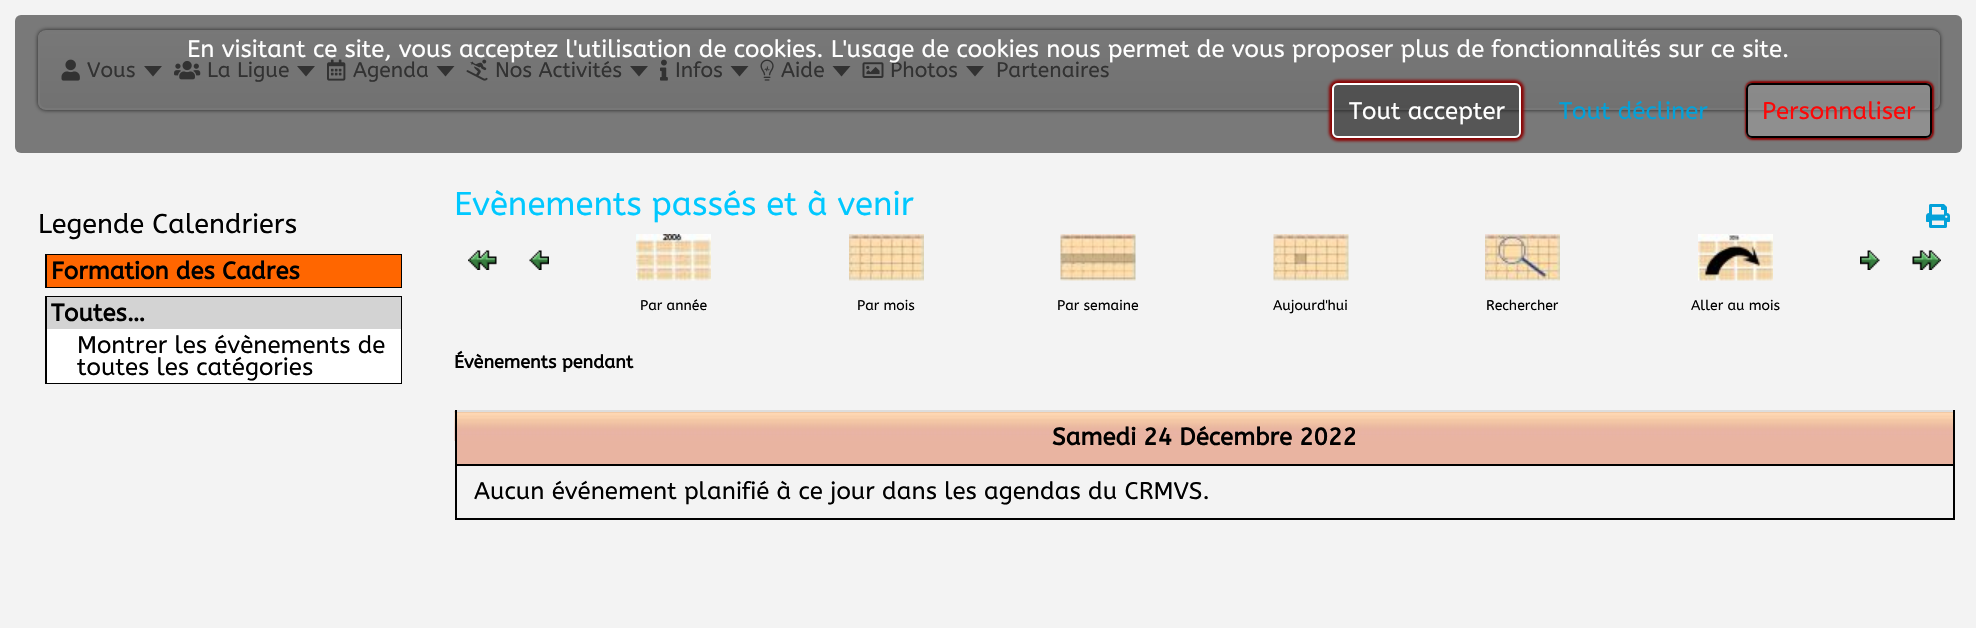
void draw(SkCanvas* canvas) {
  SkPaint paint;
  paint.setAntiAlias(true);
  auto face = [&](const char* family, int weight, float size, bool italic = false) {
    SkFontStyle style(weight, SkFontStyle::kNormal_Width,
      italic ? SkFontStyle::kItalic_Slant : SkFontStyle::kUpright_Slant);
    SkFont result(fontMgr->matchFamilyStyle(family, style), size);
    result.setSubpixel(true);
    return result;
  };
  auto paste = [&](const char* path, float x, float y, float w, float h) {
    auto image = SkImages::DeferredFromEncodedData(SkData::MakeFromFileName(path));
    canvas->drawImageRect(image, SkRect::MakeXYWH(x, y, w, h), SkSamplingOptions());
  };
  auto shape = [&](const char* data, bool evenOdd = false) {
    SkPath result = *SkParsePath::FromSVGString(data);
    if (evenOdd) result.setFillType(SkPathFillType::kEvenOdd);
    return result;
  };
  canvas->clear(0xfff3f3f3);
  paint.setColor(0xff444444);
  paint.setMaskFilter(SkMaskFilter::MakeBlur(kNormal_SkBlurStyle, 2));
  canvas->drawRoundRect(SkRect::MakeXYWH(38, 30, 1902, 80), 8, 8, paint);
  paint.setMaskFilter(nullptr);
  canvas->save();
  canvas->clipPath(shape("M46 30H1932C1936.5 30 1940 33.5 1940 38V102C1940 106.5 1936.5 110 1932 110H46C41.5 110 38 106.5 38 102V38C38 33.5 41.5 30 46 30Z"), true);
  {
    const SkColor colors[] = {0xfff0f0f0, 0xffe3e3e3};
    const float stops[] = {0, 1};
    const SkPoint ends[] = {{989, 31}, {989, 108}};
    paint.setShader(SkGradientShader::MakeLinear(ends, colors, stops, 2, SkTileMode::kClamp));
    paint.setAlpha(255);
  }
  canvas->drawRect(SkRect::MakeXYWH(38, 32, 1902, 76), paint);
  canvas->restore();
  paint.setStroke(true);
  paint.setStrokeWidth(2);
  paint.setShader(nullptr);
  paint.setColor(0xffefefef);
  canvas->drawRoundRect(SkRect::MakeXYWH(39, 31, 1900, 78), 7, 7, paint);
  paste("img/1.png", 61, 59, 19, 22);
  paint.setStroke(false);
  paint.setColor(0xff636363);
  canvas->drawPath(shape("M144 66H162L153 76.5Z"), paint);
  paste("img/2.png", 174, 60, 27, 20);
  canvas->drawPath(shape("M297 66H315L306 76.5Z"), paint);
  paste("img/3.png", 327, 59, 19, 22);
  canvas->drawPath(shape("M436.5 66H454.5L445.5 76.5Z"), paint);
  paste("img/4.png", 466, 59, 22, 22);
  canvas->drawPath(shape("M630 66H648L639 76.5Z"), paint);
  paste("img/5.png", 660, 59, 8, 22);
  canvas->drawPath(shape("M730.5 66H748.5L739.5 76.5Z"), paint);
  paste("img/6.png", 760, 59, 14, 22);
  canvas->drawPath(shape("M832.5 66H850.5L841.5 76.5Z"), paint);
  paste("img/7.png", 862, 62, 22, 16);
  canvas->drawPath(shape("M966 66H984L975 76.5Z"), paint);
  paint.setStroke(true);
  paint.setColor(0xff000000);
  canvas->drawRect(SkRect::MakeXYWH(46, 255, 355, 32), paint);
  paint.setStroke(false);
  paint.setColor(0xffff6600);
  canvas->drawRect(SkRect::MakeXYWH(47, 255, 354, 32), paint);
  paint.setStroke(true);
  paint.setColor(0xff000000);
  canvas->drawRect(SkRect::MakeXYWH(46, 297, 355, 86), paint);
  paint.setStroke(false);
  paint.setColor(0xffd3d3d3);
  canvas->drawRect(SkRect::MakeXYWH(47, 297, 354, 32), paint);
  paint.setColor(0xffffffff);
  canvas->drawRect(SkRect::MakeXYWH(47, 329, 354, 54), paint);
  paste("img/8.png", 1926, 204, 24, 24);
  paste("img/9.png", 468, 250, 29, 20);
  paste("img/10.png", 529, 250, 20, 20);
  paste("img/11.png", 636, 234, 75, 47);
  paste("img/12.png", 849, 234, 75, 47);
  paste("img/13.png", 1060, 234, 76, 47);
  paste("img/14.png", 1273, 234, 76, 47);
  paste("img/15.png", 1485, 234, 75, 47);
  paste("img/16.png", 1698, 234, 75, 47);
  paste("img/17.png", 1860, 250, 20, 20);
  paste("img/18.png", 1912, 250, 29, 20);
  paste("img/19.png", 454, 411, 1499, 30);
  {
    const struct { float x, y, w, h; SkColor color; } items[] = {
      {455, 410, 1500, 2, 0xffdddddd},
      {1953, 410, 2, 109, 0xff000000},
      {455, 518, 1500, 2, 0xff000000},
      {455, 410, 2, 109, 0xff000000},
      {457, 441, 1496, 23, 0xffe9b4a1},
      {455, 464, 1500, 2, 0xff000000},
    };
    for (auto [x, y, w, h, color] : items) {
      paint.setColor(color);
      canvas->drawRect(SkRect::MakeXYWH(x, y, w, h), paint);
    }
  }
  auto f0 = face("ABeeZee", 400, 21);
  paint.setColor(0xff636363);
  {
    const struct { const char* s; float x, y; } items[] = {
      {"Vous", 87, 77},
      {"La Ligue", 207, 77},
      {"Agenda", 353, 77},
      {"Nos Activités", 495, 77},
      {"Infos", 675, 77},
      {"Aide", 781, 77},
      {"Photos", 890, 77},
      {"Partenaires", 996, 77},
    };
    for (auto [s, x, y] : items) {
      canvas->drawString(s, x, y, f0, paint);
    }
  }
  paint.setColor(0x80000000);
  canvas->drawRoundRect(SkRect::MakeXYWH(15, 15, 1947, 138), 6, 6, paint);
  auto f1 = face("ABeeZee", 400, 24);
  paint.setColor(0xffffffff);
  canvas->drawString("En visitant ce site, vous acceptez l'utilisation de cookies. L'usage de cookies nous permet de vous proposer plus de fonctionnalités sur ce site.", 187, 57, f1, paint);
  canvas->save();
  canvas->clipPath(shape("M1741 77H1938V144H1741ZM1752 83H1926C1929.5 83 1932 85.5 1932 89V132C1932 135.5 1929.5 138 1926 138H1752C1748.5 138 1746 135.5 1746 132V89C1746 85.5 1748.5 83 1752 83Z", true), true);
  paint.setColor(0xff8c0101);
  paint.setMaskFilter(SkMaskFilter::MakeBlur(kNormal_SkBlurStyle, 1));
  canvas->drawRoundRect(SkRect::MakeXYWH(1745, 81, 189, 59), 8, 8, paint);
  paint.setMaskFilter(nullptr);
  canvas->restore();
  paint.setColor(0x33e6e6e6);
  canvas->drawRoundRect(SkRect::MakeXYWH(1747, 84, 184, 53), 5, 5, paint);
  paint.setStroke(true);
  paint.setColor(0xff000000);
  canvas->drawRoundRect(SkRect::MakeXYWH(1747, 84, 184, 53), 5, 5, paint);
  paint.setStroke(false);
  paint.setColor(0xfffc0808);
  canvas->drawString("Personnaliser", 1762, 119, f1, paint);
  paint.setColor(0xff03a1d9);
  canvas->drawString("Tout décliner", 1559, 119, f1, paint);
  canvas->save();
  canvas->clipPath(shape("M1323 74H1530V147H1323ZM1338 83H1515C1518.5 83 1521 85.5 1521 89V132C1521 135.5 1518.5 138 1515 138H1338C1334.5 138 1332 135.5 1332 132V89C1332 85.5 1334.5 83 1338 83Z", true), true);
  paint.setColor(0xff8c0101);
  paint.setMaskFilter(SkMaskFilter::MakeBlur(kNormal_SkBlurStyle, 1.5f));
  canvas->drawRoundRect(SkRect::MakeXYWH(1329, 80, 195, 61), 9, 9, paint);
  paint.setMaskFilter(nullptr);
  canvas->restore();
  paint.setColor(0x4d020203);
  canvas->drawRoundRect(SkRect::MakeXYWH(1333, 84, 187, 53), 5, 5, paint);
  paint.setStroke(true);
  paint.setColor(0xffffffff);
  canvas->drawRoundRect(SkRect::MakeXYWH(1333, 84, 187, 53), 5, 5, paint);
  paint.setStroke(false);
  canvas->drawString("Tout accepter", 1349, 119, f1, paint);
  auto f2 = face("ABeeZee", 400, 27);
  paint.setColor(0xff000000);
  canvas->drawString("Legende Calendriers", 38, 233, f2, paint);
  auto f3 = face("ABeeZee", 700, 24);
  canvas->drawString("Formation des Cadres", 51, 279, f3, paint);
  canvas->drawString("Toutes…", 51, 321, f3, paint);
  canvas->drawString("Montrer les évènements de", 77, 353, f1, paint);
  canvas->drawString("toutes les catégories", 77, 375, f1, paint);
  auto f4 = face("ABeeZee", 400, 33);
  paint.setColor(0xff00c8ff);
  canvas->drawString("Evènements passés et à venir", 454, 215, f4, paint);
  auto f5 = face("ABeeZee", 400, 14);
  paint.setColor(0xff000000);
  {
    const struct { const char* s; float x, y; } items[] = {
      {"Par année", 640, 310},
      {"Par mois", 857, 310},
      {"Par semaine", 1057, 310},
      {"Aujourd'hui", 1273, 310},
      {"Rechercher", 1486, 310},
      {"Aller au mois", 1691, 310},
    };
    for (auto [s, x, y] : items) {
      canvas->drawString(s, x, y, f5, paint);
    }
  }
  auto f6 = face("ABeeZee", 700, 18);
  canvas->drawString("Évènements pendant", 454, 368, f6, paint);
  canvas->drawString("Samedi 24 Décembre 2022", 1052, 445, f3, paint);
  canvas->drawString("Aucun événement planifié à ce jour dans les agendas du CRMVS.", 474, 499, f1, paint);
}
